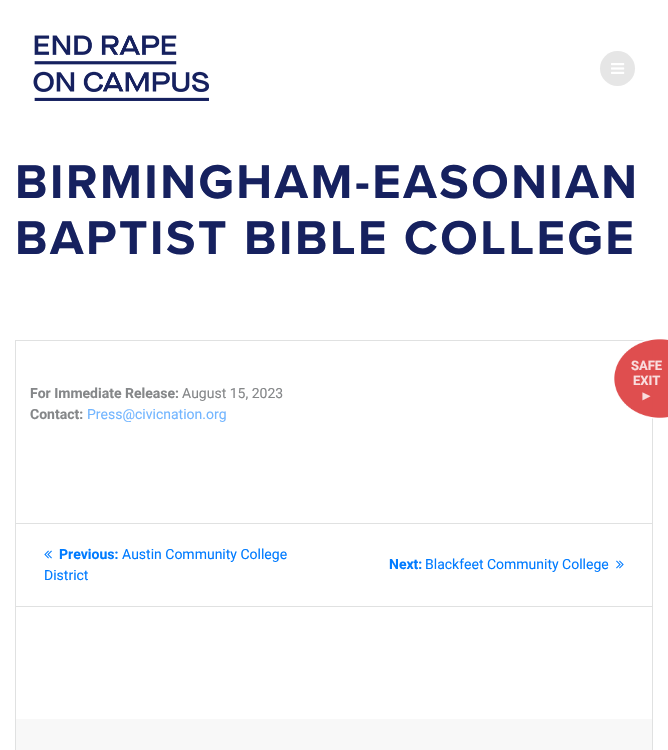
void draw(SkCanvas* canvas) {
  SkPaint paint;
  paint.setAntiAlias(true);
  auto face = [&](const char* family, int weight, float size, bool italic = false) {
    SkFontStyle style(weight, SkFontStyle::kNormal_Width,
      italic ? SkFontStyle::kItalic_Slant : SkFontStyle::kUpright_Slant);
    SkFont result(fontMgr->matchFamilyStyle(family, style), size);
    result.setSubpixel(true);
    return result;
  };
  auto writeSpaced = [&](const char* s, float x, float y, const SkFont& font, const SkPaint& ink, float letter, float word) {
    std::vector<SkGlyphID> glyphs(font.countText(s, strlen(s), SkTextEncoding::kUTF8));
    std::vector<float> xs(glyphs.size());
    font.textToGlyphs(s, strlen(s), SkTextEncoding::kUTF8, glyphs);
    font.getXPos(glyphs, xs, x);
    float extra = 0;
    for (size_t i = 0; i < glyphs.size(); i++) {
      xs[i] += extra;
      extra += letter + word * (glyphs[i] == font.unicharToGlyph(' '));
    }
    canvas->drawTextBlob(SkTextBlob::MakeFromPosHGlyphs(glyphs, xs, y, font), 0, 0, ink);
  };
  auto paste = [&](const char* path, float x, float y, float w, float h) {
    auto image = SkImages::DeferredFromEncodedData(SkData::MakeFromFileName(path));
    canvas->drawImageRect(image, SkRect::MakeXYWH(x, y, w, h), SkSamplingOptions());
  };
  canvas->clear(0xffffffff);
  paste("img/1.png", 33, 35, 176, 66);
  paint.setColor(0xffe6e6e6);
  canvas->drawCircle(617.5f, 68.5f, 17.5f, paint);
  paste("img/2.png", 611, 63, 14, 11);
  paint.setStroke(true);
  paint.setStrokeWidth(1);
  paint.setColor(0xffe0e1e1);
  canvas->drawRect(SkRect::MakeXYWH(15.5f, 340.5f, 637, 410), paint);
  paste("img/3.png", 614, 339, 54, 80);
  paste("img/4.png", 614, 339, 54, 80);
  paint.setStroke(false);
  canvas->drawRect(SkRect::MakeXYWH(16, 523, 636, 1), paint);
  canvas->drawRect(SkRect::MakeXYWH(16, 606, 636, 1), paint);
  paste("img/5.png", 44, 550, 8, 9);
  paste("img/6.png", 616, 560, 8, 9);
  paint.setColor(0xfff8f8f8);
  canvas->drawRect(SkRect::MakeXYWH(16, 719, 636, 31), paint);
  auto f0 = face("Proxima Nova", 700, 49);
  paint.setColor(0xff16215f);
  writeSpaced("BIRMINGHAM-EASONIAN", 15, 198, f0, paint, 2.5f, 0);
  writeSpaced("BAPTIST BIBLE COLLEGE", 15, 254, f0, paint, 2.5f, 0);
  auto f1 = face("Roboto", 700, 13);
  paint.setColor(0xfff9ddde);
  canvas->drawString("SAFE", 631, 370, f1, paint);
  canvas->drawString("EXIT", 633, 385, f1, paint);
  auto f2 = face("Liberation Sans", 700, 13);
  canvas->drawString("►", 640, 400, f2, paint);
  auto f3 = face("Roboto", 700, 14);
  paint.setColor(0xff858789);
  canvas->drawString("For Immediate Release:", 30, 398, f3, paint);
  auto f4 = face("Roboto", 400, 14);
  canvas->drawString("August 15, 2023", 182, 398, f4, paint);
  canvas->drawString("Contact:", 30, 419, f3, paint);
  paint.setColor(0xff73b6ff);
  canvas->drawString("Press@civicnation.org", 87, 419, f4, paint);
  paint.setColor(0xff007bff);
  canvas->drawString("Previous:", 59, 559, f3, paint);
  canvas->drawString("Austin Community College", 122, 559, f4, paint);
  canvas->drawString("District", 44, 580, f4, paint);
  canvas->drawString("Next:", 389, 569, f3, paint);
  canvas->drawString("Blackfeet Community College", 425, 569, f4, paint);
}
